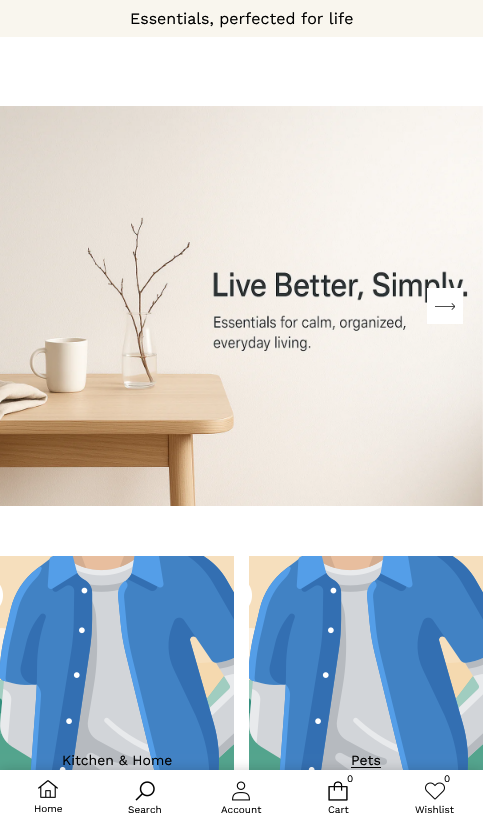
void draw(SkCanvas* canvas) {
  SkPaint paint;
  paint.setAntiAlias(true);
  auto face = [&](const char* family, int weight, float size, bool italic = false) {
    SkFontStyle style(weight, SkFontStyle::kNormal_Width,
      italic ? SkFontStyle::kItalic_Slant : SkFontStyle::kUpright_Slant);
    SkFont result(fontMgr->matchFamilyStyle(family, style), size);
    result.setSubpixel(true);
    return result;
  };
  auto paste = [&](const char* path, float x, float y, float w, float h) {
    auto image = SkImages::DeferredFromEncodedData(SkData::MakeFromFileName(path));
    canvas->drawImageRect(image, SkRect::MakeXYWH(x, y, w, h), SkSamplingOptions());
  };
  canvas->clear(0xffffffff);
  paint.setColor(0xfff9f6ee);
  canvas->drawRect(SkRect::MakeXYWH(0, 0, 483, 37), paint);
  paste("img/1.png", 0, 106, 483, 400);
  paint.setColor(0xffffffff);
  canvas->drawRect(SkRect::MakeXYWH(427, 288, 36, 36), paint);
  paste("img/2.png", 435, 303, 20, 7);
  paste("img/3.png", 0, 556, 234, 214);
  paste("img/4.png", 249, 556, 234, 214);
  paint.setColor(0xff000000);
  canvas->drawRect(SkRect::MakeXYWH(351, 767, 30, 1), paint);
  paint.setColor(0x33121212);
  paint.setMaskFilter(SkMaskFilter::MakeBlur(kNormal_SkBlurStyle, 5.5f));
  canvas->drawRect(SkRect::MakeXYWH(0, 770, 483, 51), paint);
  paint.setMaskFilter(nullptr);
  paint.setColor(0xffffffff);
  canvas->drawRect(SkRect::MakeXYWH(0, 770, 483, 51), paint);
  paste("img/5.png", 38, 780, 20, 18);
  paste("img/6.png", 135, 781, 20, 20);
  paste("img/7.png", 232, 781, 18, 20);
  paste("img/8.png", 328, 781, 20, 20);
  paste("img/9.png", 425, 782, 20, 18);
  auto f0 = face("Work Sans", 400, 16);
  paint.setColor(0xff000000);
  canvas->drawString("Essentials, perfected for life", 130, 24, f0, paint);
  auto f1 = face("Work Sans", 400, 14);
  canvas->drawString("Kitchen & Home", 62, 765, f1, paint);
  canvas->drawString("Pets", 351, 765, f1, paint);
  auto f2 = face("Work Sans", 400, 10);
  {
    const struct { const char* s; float x, y; } items[] = {
      {"Home", 34, 812},
      {"Search", 128, 813},
      {"Account", 221, 813},
      {"0", 347, 782},
      {"Cart", 328, 813},
      {"0", 444, 782},
      {"Wishlist", 415, 813},
    };
    for (auto [s, x, y] : items) {
      canvas->drawString(s, x, y, f2, paint);
    }
  }
}
